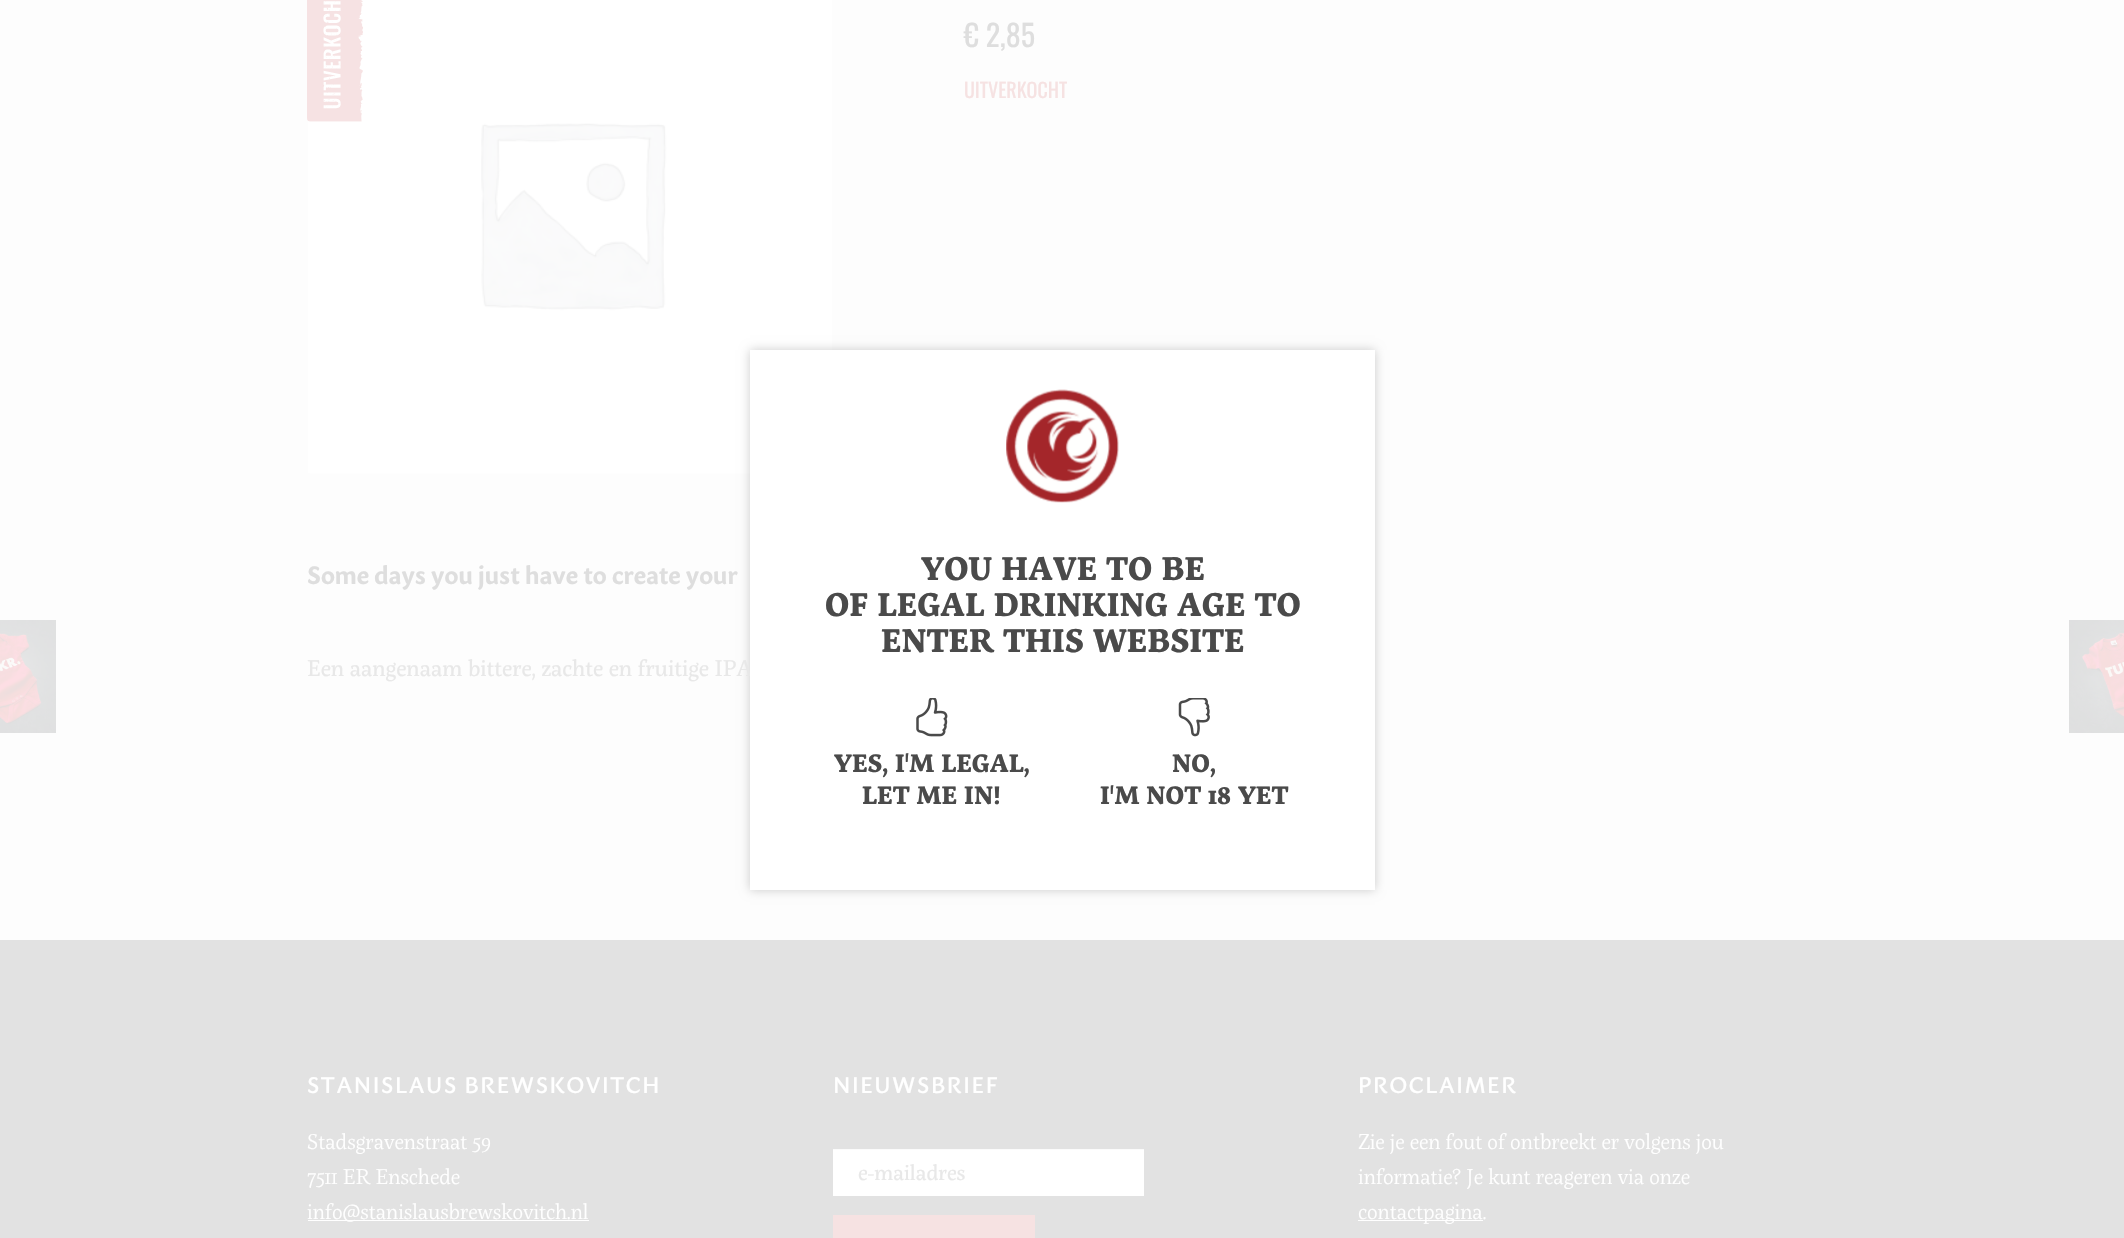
void draw(SkCanvas* canvas) {
  SkPaint paint;
  paint.setAntiAlias(true);
  auto face = [&](const char* family, int weight, float size, bool italic = false) {
    SkFontStyle style(weight, SkFontStyle::kNormal_Width,
      italic ? SkFontStyle::kItalic_Slant : SkFontStyle::kUpright_Slant);
    SkFont result(fontMgr->matchFamilyStyle(family, style), size);
    result.setSubpixel(true);
    return result;
  };
  auto writeSpaced = [&](const char* s, float x, float y, const SkFont& font, const SkPaint& ink, float letter, float word) {
    std::vector<SkGlyphID> glyphs(font.countText(s, strlen(s), SkTextEncoding::kUTF8));
    std::vector<float> xs(glyphs.size());
    font.textToGlyphs(s, strlen(s), SkTextEncoding::kUTF8, glyphs);
    font.getXPos(glyphs, xs, x);
    float extra = 0;
    for (size_t i = 0; i < glyphs.size(); i++) {
      xs[i] += extra;
      extra += letter + word * (glyphs[i] == font.unicharToGlyph(' '));
    }
    canvas->drawTextBlob(SkTextBlob::MakeFromPosHGlyphs(glyphs, xs, y, font), 0, 0, ink);
  };
  auto paste = [&](const char* path, float x, float y, float w, float h) {
    auto image = SkImages::DeferredFromEncodedData(SkData::MakeFromFileName(path));
    canvas->drawImageRect(image, SkRect::MakeXYWH(x, y, w, h), SkSamplingOptions());
  };
  canvas->clear(0xfffdfdfd);
  paste("img/2.png", 308, 0, 524, 474);
  paste("img/1.png", 307, 0, 56, 122);
  paste("img/3.png", 0, 620, 56, 113);
  paste("img/4.png", 2069, 620, 55, 113);
  {
    const struct { float x, y, w, h; SkColor color; } items[] = {
      {0, 940, 2124, 298, 0xffe2e2e2},
      {308, 1220, 281, 1, 0xffffffff},
      {833, 1150, 311, 46, 0xffffffff},
      {833, 1149, 311, 1, 0xfffbfbfb},
      {833, 1215, 202, 23, 0xfff6e2e2},
      {1358, 1220, 125, 1, 0xffffffff},
    };
    for (auto [x, y, w, h, color] : items) {
      paint.setColor(color);
      canvas->drawRect(SkRect::MakeXYWH(x, y, w, h), paint);
    }
  }
  paint.setColor(0x33000000);
  paint.setMaskFilter(SkMaskFilter::MakeBlur(kNormal_SkBlurStyle, 5));
  canvas->drawRect(SkRect::MakeXYWH(750, 350, 625, 540), paint);
  paint.setMaskFilter(nullptr);
  auto f0 = face("Oswald", 400, 30);
  paint.setColor(0xffdedede);
  canvas->drawString("€ 2,85", 964, 47, f0, paint);
  auto f1 = face("Oswald", 400, 20);
  paint.setColor(0xfff6e2e2);
  canvas->drawString("UITVERKOCHT", 964, 98, f1, paint);
  auto f2 = face("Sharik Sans", 700, 25);
  paint.setColor(0xffdedede);
  canvas->drawString("Some days you just have to create your", 307, 584, f2, paint);
  auto f3 = face("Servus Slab", 400, 22.5f);
  paint.setColor(0xffe8e8e8);
  canvas->drawString("Een aangenaam bittere, zachte en fruitige IPA", 307, 676, f3, paint);
  auto f4 = face("Sharik Sans", 500, 22.5f);
  paint.setColor(0xffffffff);
  writeSpaced("STANISLAUS BREWSKOVITCH", 307, 1093, f4, paint, 1.6f, 0);
  auto f5 = face("Servus Slab", 300, 21.25f);
  {
    const struct { const char* s; float x, y; } items[] = {
      {"Stadsgravenstraat 59", 307, 1149},
      {"7511 ER Enschede", 307, 1184},
      {"info@stanislausbrewskovitch.nl", 307, 1219},
    };
    for (auto [s, x, y] : items) {
      canvas->drawString(s, x, y, f5, paint);
    }
  }
  writeSpaced("NIEUWSBRIEF", 833, 1093, f4, paint, 1.6f, 0);
  auto f6 = face("Servus Slab", 400, 21.25f);
  paint.setColor(0xffe8e8e8);
  canvas->drawString("e-mailadres", 858, 1180, f6, paint);
  paint.setColor(0xffffffff);
  writeSpaced("PROCLAIMER", 1358, 1093, f4, paint, 1.6f, 0);
  {
    const struct { const char* s; float x, y; } items[] = {
      {"Zie je een fout of ontbreekt er volgens jou", 1358, 1149},
      {"informatie? Je kunt reageren via onze", 1358, 1184},
      {"contactpagina.", 1358, 1219},
    };
    for (auto [s, x, y] : items) {
      canvas->drawString(s, x, y, f5, paint);
    }
  }
  canvas->drawRect(SkRect::MakeXYWH(750, 350, 625, 540), paint);
  paste("img/5.png", 1006, 389, 113, 114);
  auto f7 = face("Servus Slab", 700, 32.5f);
  paint.setColor(0xff4a4a4a);
  {
    const struct { const char* s; float x, y; } items[] = {
      {"YOU HAVE TO BE", 921, 580},
      {"OF LEGAL DRINKING AGE TO", 825, 616},
      {"ENTER THIS WEBSITE", 881, 652},
    };
    for (auto [s, x, y] : items) {
      canvas->drawString(s, x, y, f7, paint);
    }
  }
  paste("img/6.png", 916, 698, 32, 39);
  auto f8 = face("Servus Slab", 700, 25);
  canvas->drawString("YES, I'M LEGAL,", 834, 772, f8, paint);
  canvas->drawString("LET ME IN!", 862, 804, f8, paint);
  paste("img/7.png", 1178, 698, 32, 39);
  canvas->drawString("NO,", 1172, 772, f8, paint);
  canvas->drawString("I'M NOT 18 YET", 1100, 804, f8, paint);
}
